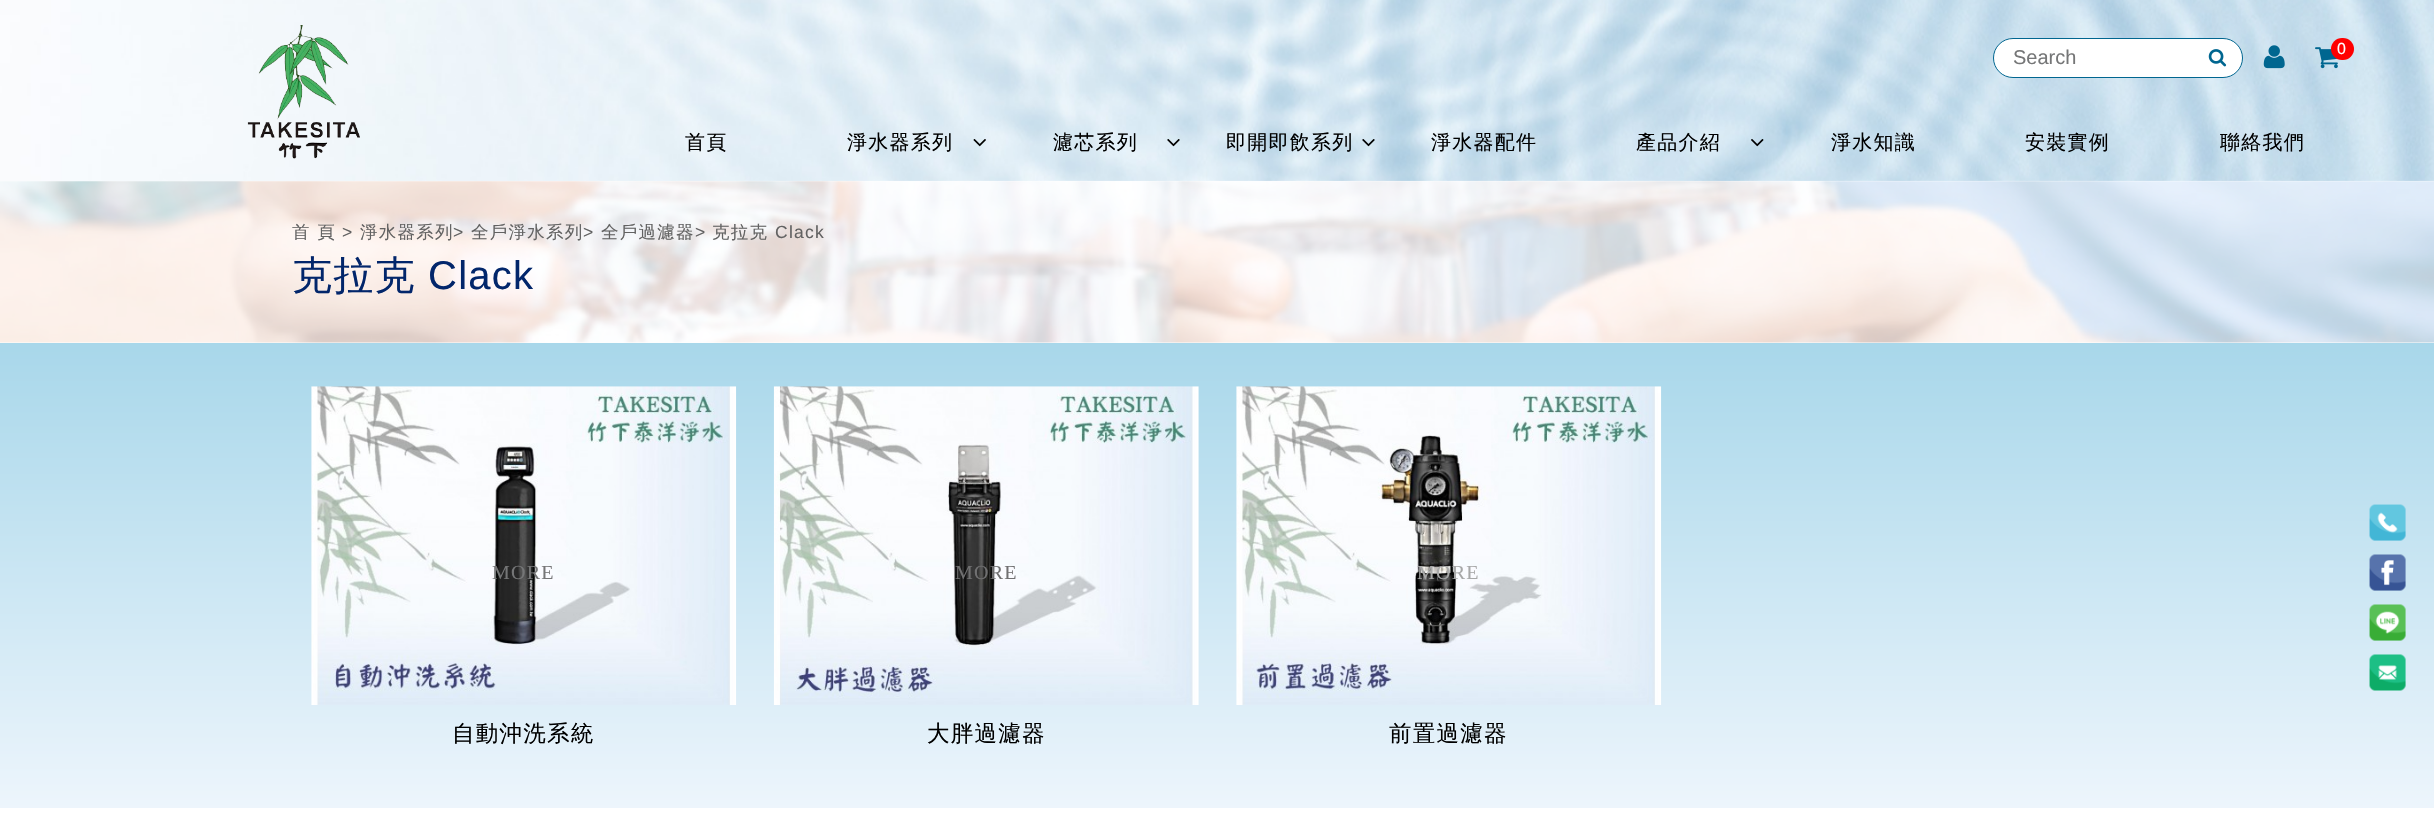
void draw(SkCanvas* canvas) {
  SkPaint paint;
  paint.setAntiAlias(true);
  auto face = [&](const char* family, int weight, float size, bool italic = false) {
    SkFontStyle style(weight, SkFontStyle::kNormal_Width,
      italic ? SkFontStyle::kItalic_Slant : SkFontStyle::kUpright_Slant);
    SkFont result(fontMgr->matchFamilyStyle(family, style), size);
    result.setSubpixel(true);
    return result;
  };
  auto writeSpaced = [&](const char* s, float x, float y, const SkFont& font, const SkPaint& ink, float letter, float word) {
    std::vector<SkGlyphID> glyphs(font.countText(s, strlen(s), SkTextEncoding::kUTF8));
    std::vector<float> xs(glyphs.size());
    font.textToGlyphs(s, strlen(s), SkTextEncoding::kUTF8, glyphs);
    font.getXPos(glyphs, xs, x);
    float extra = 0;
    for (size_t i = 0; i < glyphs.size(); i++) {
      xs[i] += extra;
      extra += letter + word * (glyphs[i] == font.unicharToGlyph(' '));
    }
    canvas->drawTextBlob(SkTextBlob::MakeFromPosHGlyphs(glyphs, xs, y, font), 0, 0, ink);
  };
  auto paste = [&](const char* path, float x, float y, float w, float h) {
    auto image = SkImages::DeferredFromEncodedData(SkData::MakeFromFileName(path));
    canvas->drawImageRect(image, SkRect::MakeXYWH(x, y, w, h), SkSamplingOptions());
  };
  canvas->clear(0xffffffff);
  paste("img/1.png", 0, 0, 2434, 181);
  paste("img/2.png", 247, 25, 113, 134);
  paint.setColor(0xffffffff);
  canvas->drawRoundRect(SkRect::MakeXYWH(1993.5f, 38.5f, 249, 39), 19.5f, 19.5f, paint);
  paint.setStroke(true);
  paint.setStrokeWidth(1);
  paint.setColor(0xff006690);
  canvas->drawRoundRect(SkRect::MakeXYWH(1993.5f, 38.5f, 249, 39), 19.5f, 19.5f, paint);
  paste("img/3.png", 2208, 49, 19, 18);
  paste("img/4.png", 2263, 45, 22, 24);
  paste("img/5.png", 2315, 47, 23, 22);
  paint.setStroke(false);
  paint.setColor(0xffff0000);
  canvas->drawRoundRect(SkRect::MakeXYWH(2331, 38, 23, 22), 11, 11, paint);
  paste("img/6.png", 973, 139, 13, 8);
  paste("img/7.png", 1167, 139, 13, 8);
  paste("img/8.png", 1362, 139, 13, 8);
  paste("img/9.png", 1751, 139, 13, 8);
  paste("img/10.png", 0, 181, 2434, 162);
  {
    const SkColor colors[] = {0xffa8d7ea, 0xffedf5fc};
    const float stops[] = {0, 1};
    const SkPoint ends[] = {{1218, 342}, {1218, 808}};
    paint.setShader(SkGradientShader::MakeLinear(ends, colors, stops, 2, SkTileMode::kClamp));
    paint.setAlpha(255);
  }
  canvas->drawRect(SkRect::MakeXYWH(0, 343, 2434, 465), paint);
  paste("img/11.png", 311, 386, 426, 319);
  paste("img/12.png", 773, 386, 426, 319);
  paste("img/13.png", 1236, 386, 426, 319);
  paste("img/14.png", 2369, 504, 37, 37);
  paste("img/15.png", 2369, 554, 37, 37);
  paste("img/16.png", 2369, 604, 37, 37);
  paste("img/17.png", 2369, 654, 37, 37);
  auto f0 = face("Liberation Sans", 400, 20);
  paint.setShader(nullptr);
  paint.setColor(0xff757677);
  canvas->drawString("Search", 2013, 64, f0, paint);
  auto f1 = face("Liberation Sans", 400, 16);
  paint.setColor(0xffffffff);
  writeSpaced("0", 2337, 54, f1, paint, 1.25f, 0);
  auto f2 = face("WenQuanYi Zen Hei", 500, 20);
  paint.setColor(0xff000000);
  {
    const struct { const char* s; float x, y; } items[] = {
      {"首頁", 685, 149},
      {"淨水器系列", 847, 149},
      {"濾芯系列", 1053, 149},
      {"即開即飲系列", 1226, 149},
      {"淨水器配件", 1431, 149},
      {"產品介紹", 1636, 149},
      {"淨水知識", 1831, 149},
      {"安裝實例", 2025, 149},
      {"聯絡我們", 2220, 149},
    };
    for (auto [s, x, y] : items) {
      writeSpaced(s, x, y, f2, paint, 1.25f, 0);
    }
  }
  auto f3 = face("WenQuanYi Zen Hei", 500, 17.5f);
  paint.setColor(0xff626262);
  writeSpaced("首 頁", 292, 238, f3, paint, 1.25f, 0);
  auto f4 = face("Liberation Sans", 400, 17.5f);
  writeSpaced(">", 342, 238, f4, paint, 1.25f, 0);
  writeSpaced("淨水器系列", 360, 238, f3, paint, 1.25f, 0);
  writeSpaced(">", 453, 238, f4, paint, 1.25f, 0);
  writeSpaced("全戶淨水系列", 471, 238, f3, paint, 1.25f, 0);
  writeSpaced(">", 583, 238, f4, paint, 1.25f, 0);
  writeSpaced("全戶過濾器", 601, 238, f3, paint, 1.25f, 0);
  writeSpaced(">", 695, 238, f4, paint, 1.25f, 0);
  writeSpaced("克拉克", 712, 238, f3, paint, 1.25f, 0);
  writeSpaced("Clack", 775, 238, f4, paint, 1.25f, 0);
  auto f5 = face("WenQuanYi Zen Hei", 500, 40);
  paint.setColor(0xff02266b);
  writeSpaced("克拉克", 292, 289, f5, paint, 1.25f, 0);
  auto f6 = face("Liberation Sans", 400, 40);
  writeSpaced("Clack", 428, 289, f6, paint, 1.25f, 0);
  auto f7 = face("Liberation Serif", 400, 20);
  paint.setColor(0xff757677);
  writeSpaced("MORE", 492, 579, f7, paint, 1.25f, 0);
  auto f8 = face("WenQuanYi Zen Hei", 500, 22.5f);
  paint.setColor(0xff000000);
  writeSpaced("自動沖洗系統", 452, 741, f8, paint, 1.25f, 0);
  paint.setColor(0xff707071);
  writeSpaced("MORE", 955, 579, f7, paint, 1.25f, 0);
  paint.setColor(0xff000000);
  writeSpaced("大胖過濾器", 927, 741, f8, paint, 1.25f, 0);
  paint.setColor(0xffa7a8a8);
  writeSpaced("MORE", 1417, 579, f7, paint, 1.25f, 0);
  paint.setColor(0xff000000);
  writeSpaced("前置過濾器", 1389, 741, f8, paint, 1.25f, 0);
}
